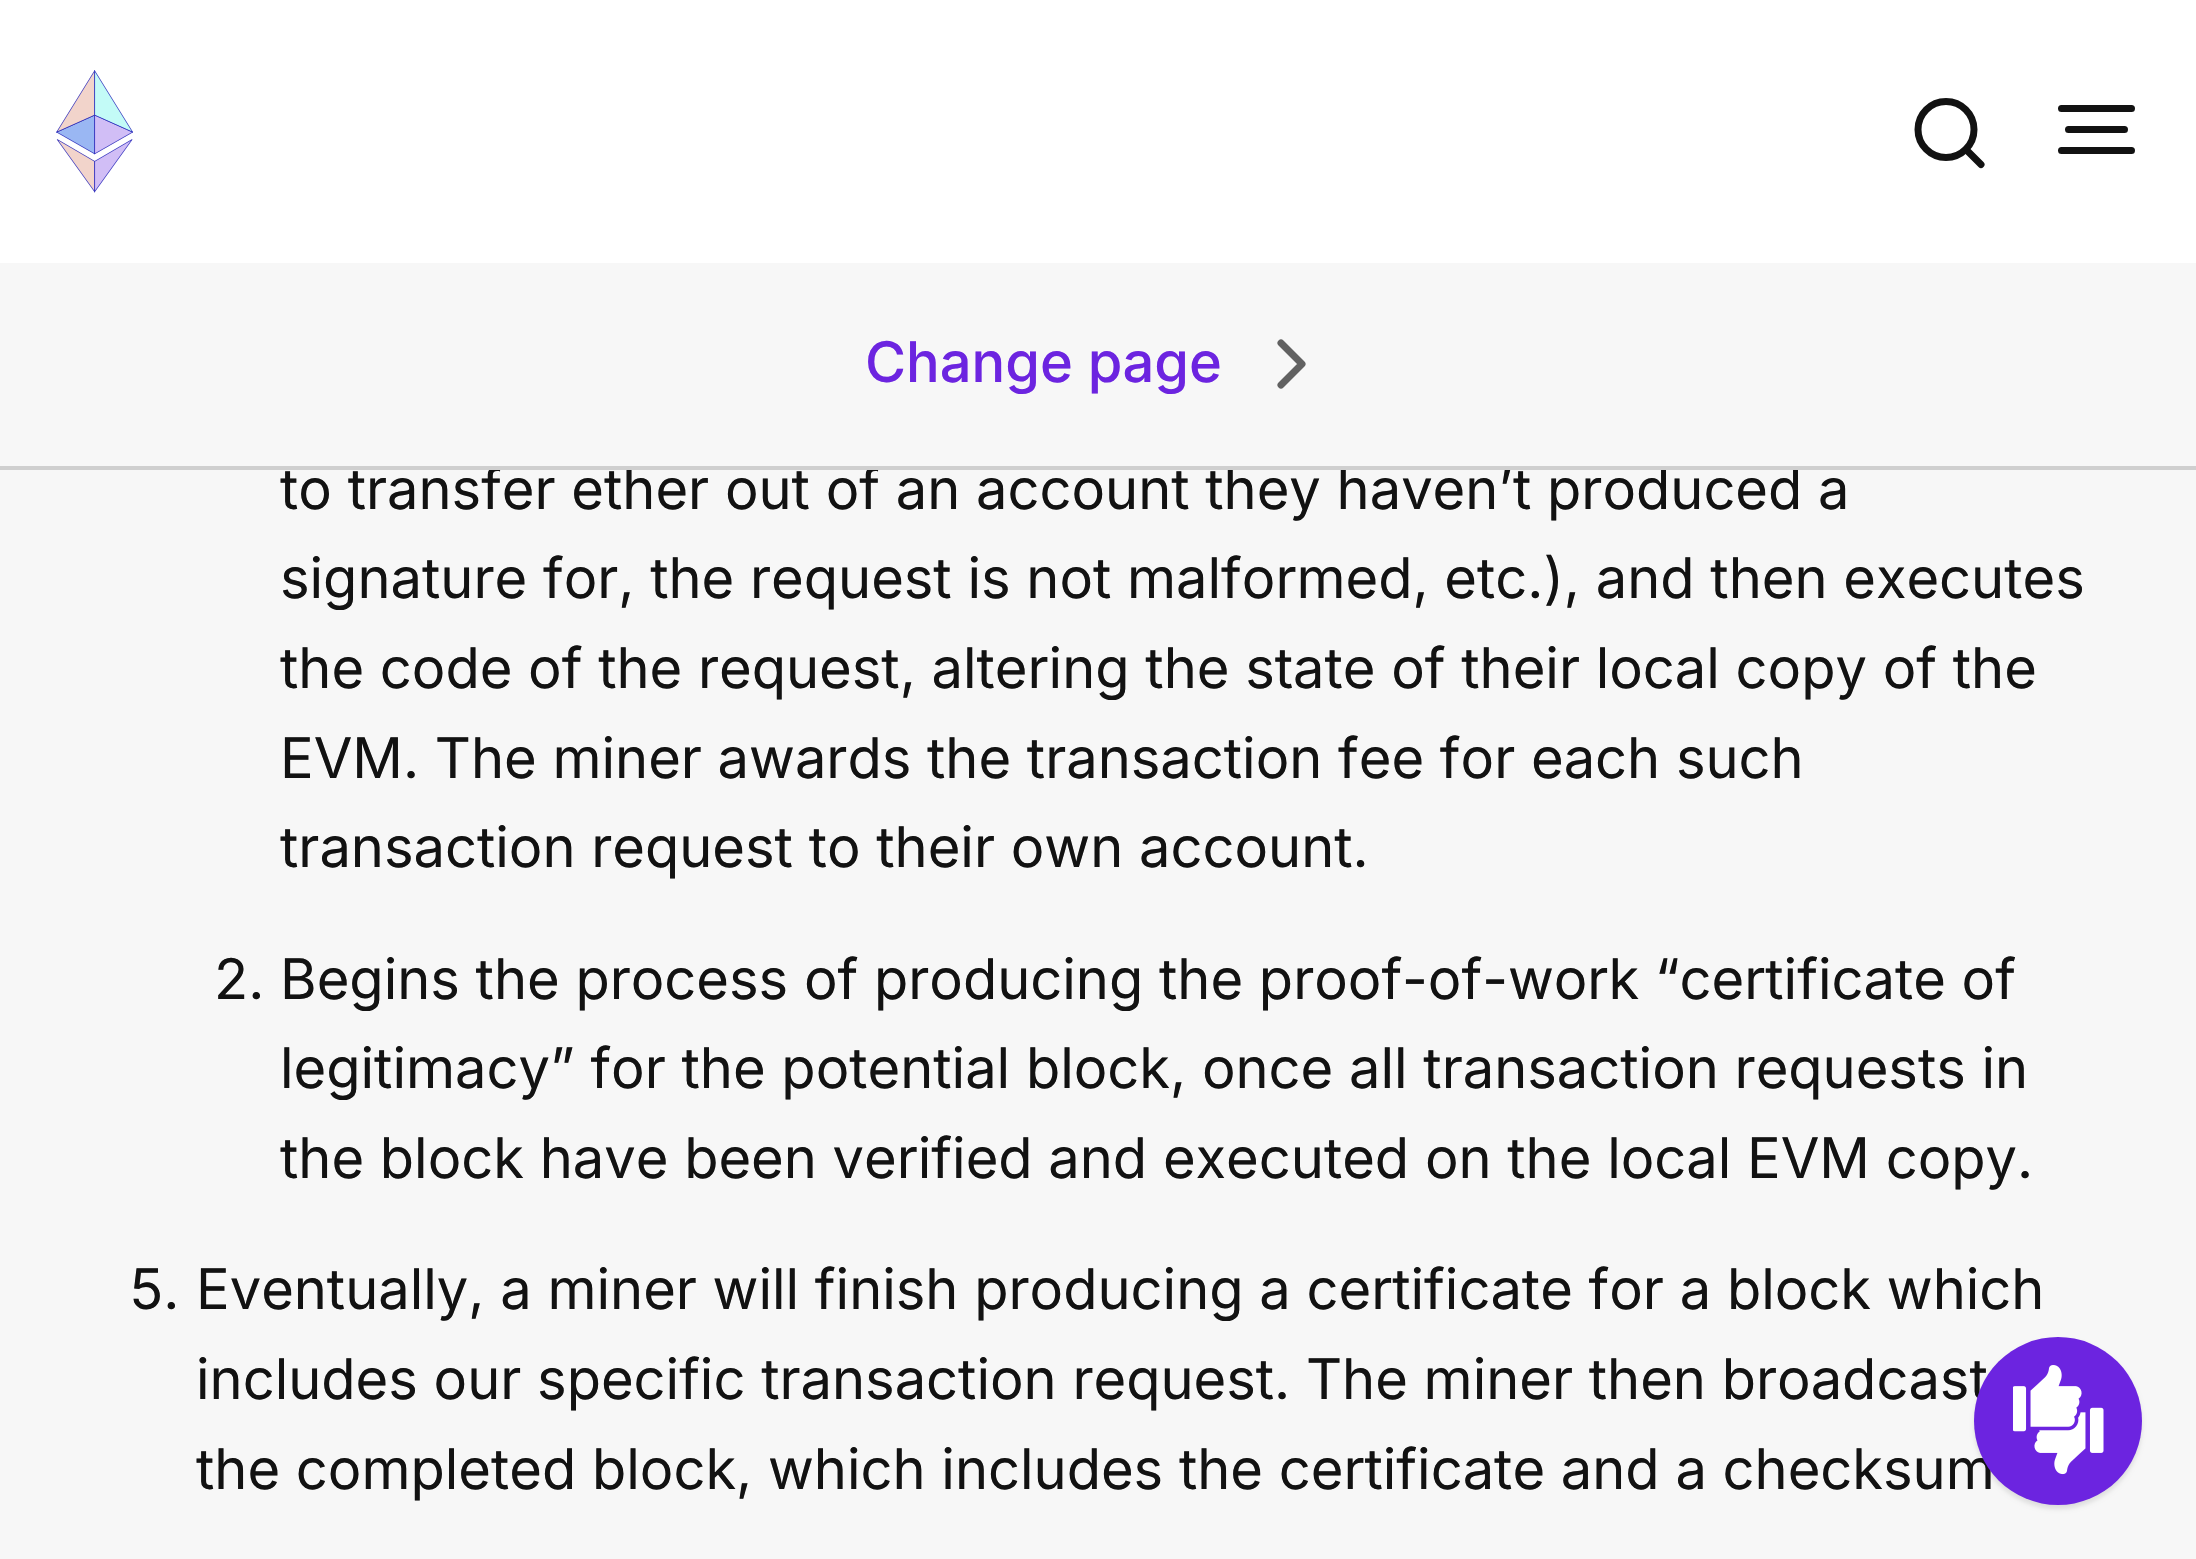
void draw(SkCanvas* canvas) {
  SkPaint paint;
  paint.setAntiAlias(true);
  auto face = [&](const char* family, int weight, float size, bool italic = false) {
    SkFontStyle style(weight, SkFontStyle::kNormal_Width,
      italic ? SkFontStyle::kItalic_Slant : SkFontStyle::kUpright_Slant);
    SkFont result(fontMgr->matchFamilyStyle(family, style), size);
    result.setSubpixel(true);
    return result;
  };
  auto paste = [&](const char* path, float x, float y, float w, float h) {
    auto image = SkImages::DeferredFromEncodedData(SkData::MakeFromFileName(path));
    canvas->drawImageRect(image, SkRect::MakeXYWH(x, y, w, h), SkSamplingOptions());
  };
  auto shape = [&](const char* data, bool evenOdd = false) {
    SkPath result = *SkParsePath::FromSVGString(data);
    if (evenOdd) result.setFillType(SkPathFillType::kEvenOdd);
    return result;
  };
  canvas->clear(0xfff7f7f7);
  paint.setColor(0xffffffff);
  canvas->drawRect(SkRect::MakeXYWH(0, 0, 2196, 263), paint);
  paste("img/1.png", 56, 70, 77, 123);
  paint.setStroke(true);
  paint.setStrokeWidth(7);
  paint.setStrokeCap(SkPaint::kRound_Cap);
  paint.setStrokeJoin(SkPaint::kRound_Join);
  paint.setColor(0xff121212);
  canvas->drawPath(shape("M1981 164.5L1966 149.5"), paint);
  paint.setStrokeCap(SkPaint::kButt_Cap);
  paint.setStrokeJoin(SkPaint::kMiter_Join);
  canvas->drawCircle(1946, 129.5f, 28, paint);
  paint.setStrokeCap(SkPaint::kRound_Cap);
  paint.setStrokeJoin(SkPaint::kRound_Join);
  canvas->drawPath(shape("M2061.5 108.5H2131.5M2068.5 129.5H2096.5M2096.5 129.5H2124.5M2061.5 150.5H2131.5"), paint);
  paint.setColor(0xff616161);
  canvas->drawPath(shape("M1281 385L1302 364L1281 343"), paint);
  paint.setStroke(false);
  paint.setColor(0x1a000000);
  paint.setMaskFilter(SkMaskFilter::MakeBlur(kNormal_SkBlurStyle, 2));
  canvas->drawRoundRect(SkRect::MakeXYWH(1974, 1341, 168, 168), 84, 84, paint);
  paint.setMaskFilter(nullptr);
  auto f0 = face("Inter", 500, 56);
  paint.setColor(0xff6c24e0);
  canvas->drawString("Change page", 865, 382, f0, paint);
  auto f1 = face("Inter", 400, 56);
  paint.setColor(0xff121212);
  canvas->drawString("to transfer ether out of an account they haven’t produced a", 280, 509, f1, paint);
  paint.setColor(0xffcfcfcf);
  canvas->drawRect(SkRect::MakeXYWH(0, 466, 2196, 4), paint);
  paint.setColor(0xff121212);
  {
    const struct { const char* s; float x, y; } items[] = {
      {"signature for, the request is not malformed, etc.), and then executes", 280, 598},
      {"the code of the request, altering the state of their local copy of the", 280, 688},
      {"EVM. The miner awards the transaction fee for each such", 280, 778},
      {"transaction request to their own account.", 280, 867},
      {"2.", 214, 999},
      {"Begins the process of producing the proof-of-work “certificate of", 280, 999},
      {"legitimacy” for the potential block, once all transaction requests in", 280, 1088},
      {"the block have been verified and executed on the local EVM copy.", 280, 1178},
      {"5.", 130, 1309},
      {"Eventually, a miner will finish producing a certificate for a block which", 196, 1309},
      {"includes our specific transaction request. The miner then broadcast", 196, 1399},
      {"the completed block, which includes the certificate and a checksum", 196, 1489},
    };
    for (auto [s, x, y] : items) {
      canvas->drawString(s, x, y, f1, paint);
    }
  }
  paint.setColor(0xff6c24e0);
  canvas->drawCircle(2058, 1421, 84, paint);
  paste("img/2.png", 2013, 1365, 91, 110);
}
